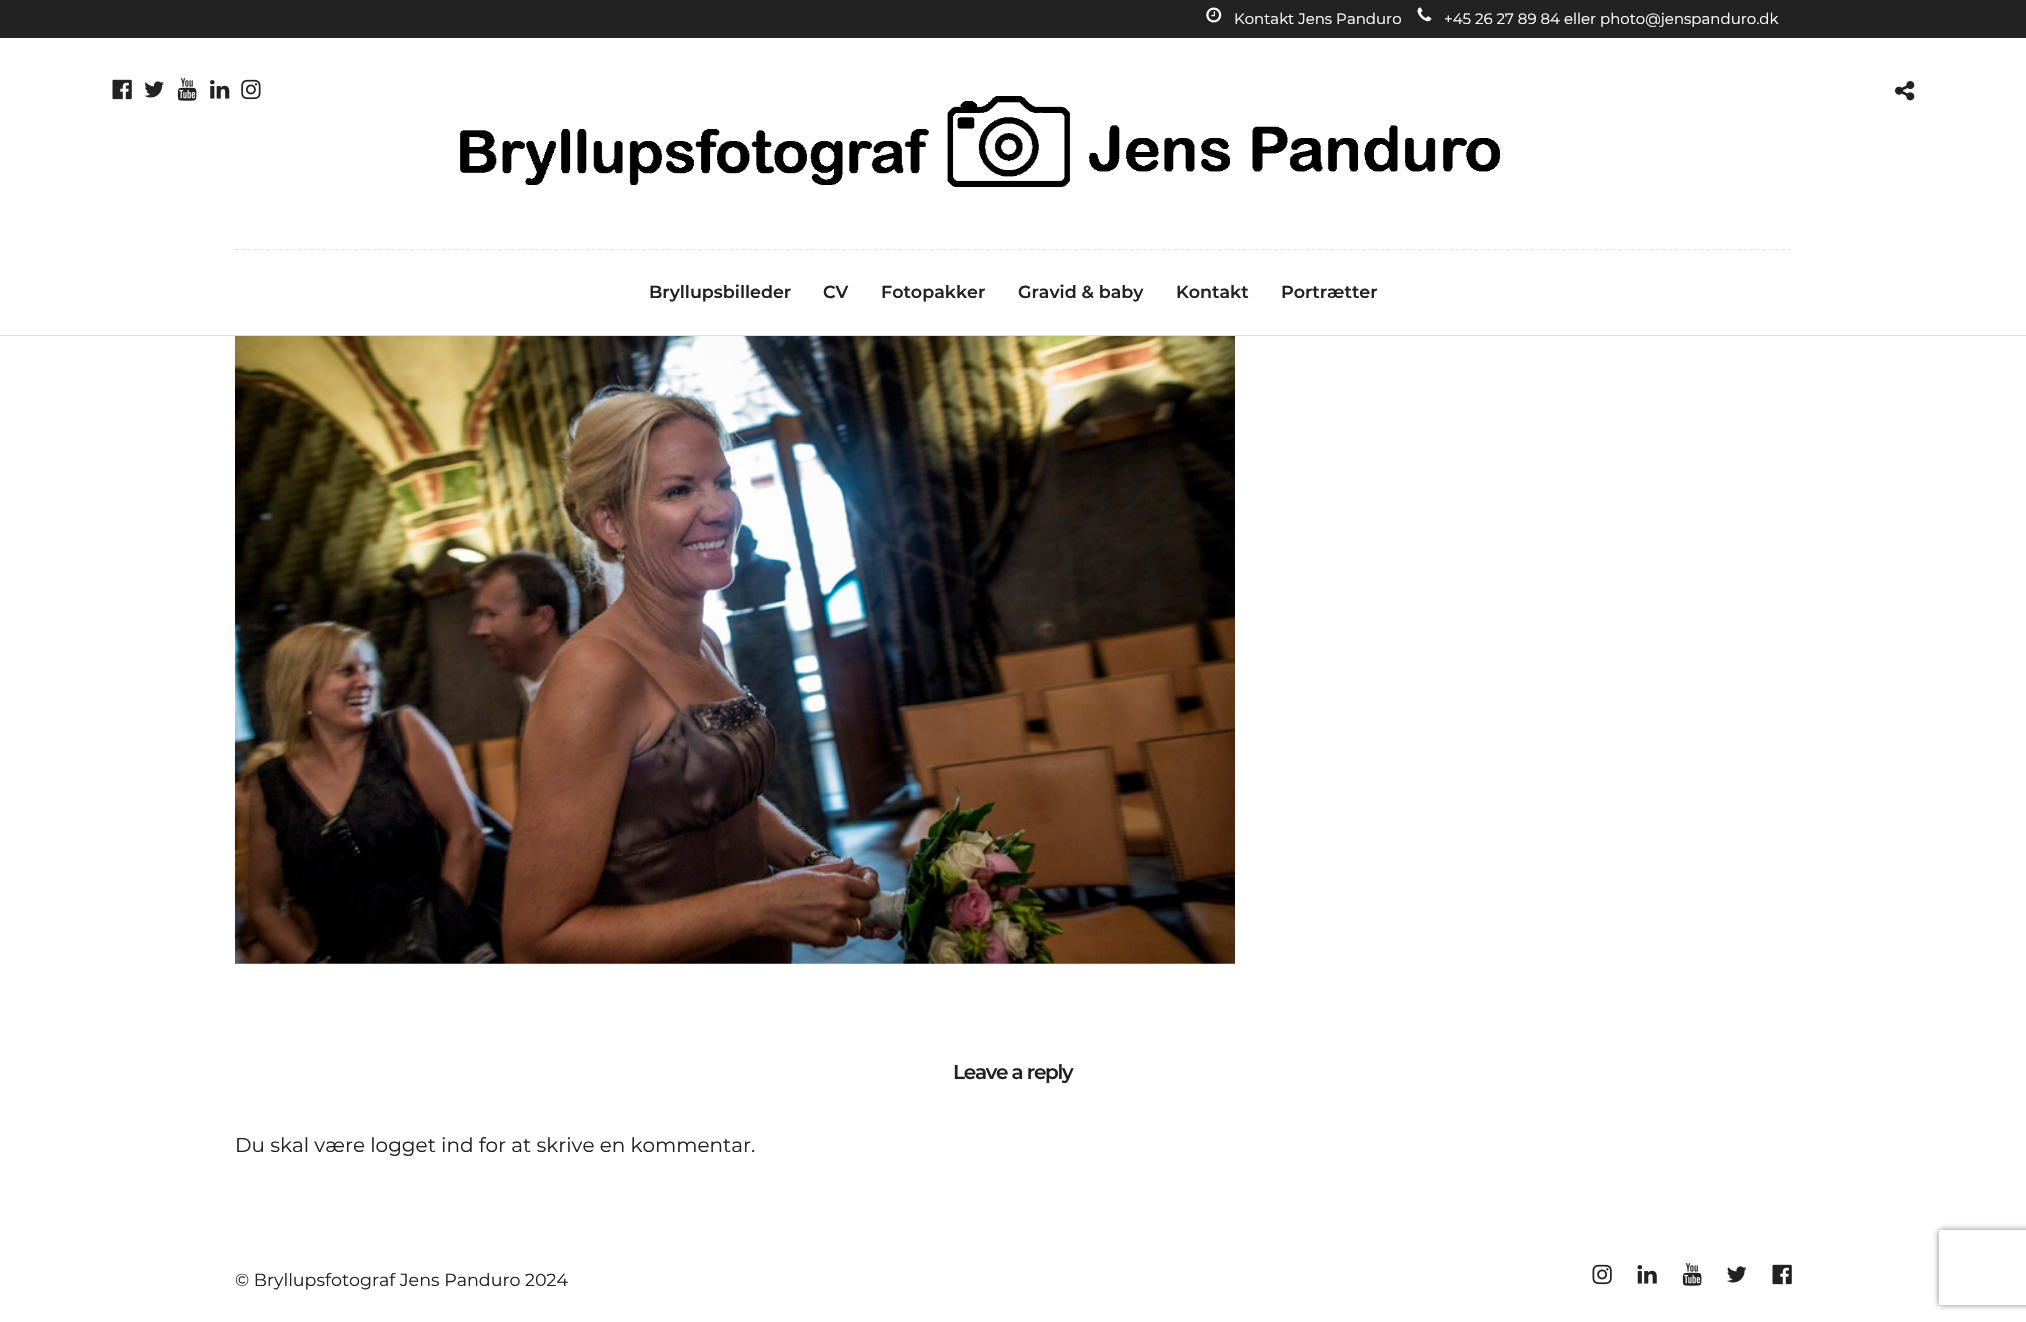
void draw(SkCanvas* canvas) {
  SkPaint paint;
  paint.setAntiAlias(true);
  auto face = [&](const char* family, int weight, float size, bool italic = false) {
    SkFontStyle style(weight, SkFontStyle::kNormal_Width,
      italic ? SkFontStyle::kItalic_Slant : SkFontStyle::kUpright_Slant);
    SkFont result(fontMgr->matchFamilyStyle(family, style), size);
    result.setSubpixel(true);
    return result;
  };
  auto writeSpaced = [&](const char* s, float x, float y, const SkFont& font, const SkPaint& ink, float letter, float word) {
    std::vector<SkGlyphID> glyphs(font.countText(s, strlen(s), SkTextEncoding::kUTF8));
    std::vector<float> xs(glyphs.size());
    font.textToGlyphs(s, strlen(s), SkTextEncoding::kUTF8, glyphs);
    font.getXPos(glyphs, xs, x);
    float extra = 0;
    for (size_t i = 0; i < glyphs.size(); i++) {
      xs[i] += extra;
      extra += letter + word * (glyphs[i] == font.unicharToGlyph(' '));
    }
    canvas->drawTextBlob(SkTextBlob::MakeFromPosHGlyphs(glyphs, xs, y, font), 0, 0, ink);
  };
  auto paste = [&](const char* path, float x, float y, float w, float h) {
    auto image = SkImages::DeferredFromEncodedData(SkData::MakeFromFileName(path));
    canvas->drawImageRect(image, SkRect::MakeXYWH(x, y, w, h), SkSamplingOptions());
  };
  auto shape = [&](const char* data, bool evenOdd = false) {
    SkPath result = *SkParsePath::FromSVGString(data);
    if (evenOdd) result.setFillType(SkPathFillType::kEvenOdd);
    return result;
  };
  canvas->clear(0xffffffff);
  paint.setColor(0xff222222);
  canvas->drawRect(SkRect::MakeXYWH(0, 0, 2026, 38), paint);
  paste("img/1.png", 1206, 7, 16, 16);
  paste("img/2.png", 1417, 7, 15, 15);
  paint.setColor(0xffe1e1e1);
  canvas->drawRect(SkRect::MakeXYWH(0, 335, 2026, 1), paint);
  paste("img/3.png", 112, 79, 20, 21);
  paste("img/4.png", 144, 81, 20, 17);
  paste("img/5.png", 177, 78, 20, 23);
  paste("img/6.png", 210, 80, 20, 19);
  paste("img/7.png", 241, 79, 20, 21);
  paste("img/8.png", 1895, 81, 20, 20);
  paste("img/9.png", 460, 96, 1040, 91);
  paint.setStroke(true);
  paint.setStrokeWidth(1.2f);
  paint.setPathEffect(SkDashPathEffect::Make({{3.75f, 2.51f}}, 0));
  canvas->drawPath(shape("M235 249.5H1791"), paint);
  paint.setPathEffect(nullptr);
  paste("img/10.png", 235, 336, 1000, 628);
  paste("img/11.png", 1592, 1264, 20, 21);
  paste("img/12.png", 1637, 1265, 20, 19);
  paste("img/5.png", 1682, 1263, 20, 23);
  paste("img/13.png", 1727, 1266, 20, 17);
  paste("img/3.png", 1772, 1264, 20, 21);
  canvas->save();
  canvas->clipPath(shape("M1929 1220H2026V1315H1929ZM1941.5 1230H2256.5C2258 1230 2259 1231 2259 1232.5V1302.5C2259 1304 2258 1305 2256.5 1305H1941.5C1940 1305 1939 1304 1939 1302.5V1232.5C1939 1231 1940 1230 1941.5 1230Z", true), true);
  paint.setStroke(false);
  paint.setColor(0xff808080);
  paint.setMaskFilter(SkMaskFilter::MakeBlur(kNormal_SkBlurStyle, 3));
  canvas->drawRoundRect(SkRect::MakeXYWH(1939, 1230, 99, 75), 2.5f, 2.5f, paint);
  paint.setMaskFilter(nullptr);
  canvas->restore();
  auto f0 = face("Montserrat", 400, 15);
  paint.setColor(0xffffffff);
  canvas->drawString("Kontakt Jens Panduro", 1234, 24, f0, paint);
  canvas->drawString("+45 26 27 89 84 eller photo@jenspanduro.dk", 1444, 24, f0, paint);
  auto f1 = face("Montserrat", 600, 17.5f);
  paint.setColor(0xff222222);
  {
    const struct { const char* s; float x, y; } items[] = {
      {"Bryllupsbilleder", 649, 298},
      {"CV", 823, 298},
      {"Fotopakker", 881, 298},
      {"Gravid & baby", 1018, 298},
      {"Kontakt", 1176, 298},
      {"Portrætter", 1281, 298},
    };
    for (auto [s, x, y] : items) {
      canvas->drawString(s, x, y, f1, paint);
    }
  }
  auto f2 = face("Montserrat", 600, 20);
  writeSpaced("Leave a reply", 953, 1079, f2, paint, -1.25f, 0);
  auto f3 = face("Montserrat", 400, 20);
  canvas->drawString("Du skal være logget ind for at skrive en kommentar.", 235, 1152, f3, paint);
  auto f4 = face("Montserrat", 400, 17.5f);
  canvas->drawString("© Bryllupsfotograf Jens Panduro 2024", 235, 1286, f4, paint);
}
